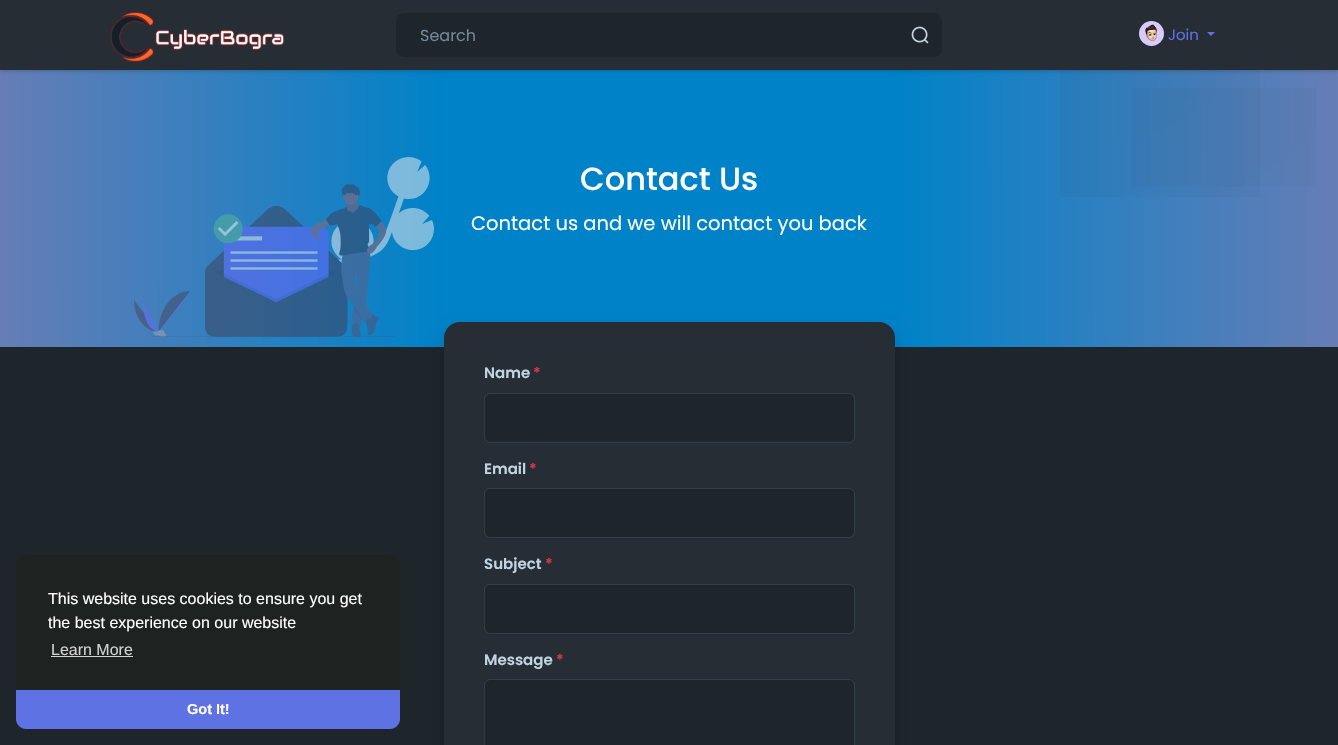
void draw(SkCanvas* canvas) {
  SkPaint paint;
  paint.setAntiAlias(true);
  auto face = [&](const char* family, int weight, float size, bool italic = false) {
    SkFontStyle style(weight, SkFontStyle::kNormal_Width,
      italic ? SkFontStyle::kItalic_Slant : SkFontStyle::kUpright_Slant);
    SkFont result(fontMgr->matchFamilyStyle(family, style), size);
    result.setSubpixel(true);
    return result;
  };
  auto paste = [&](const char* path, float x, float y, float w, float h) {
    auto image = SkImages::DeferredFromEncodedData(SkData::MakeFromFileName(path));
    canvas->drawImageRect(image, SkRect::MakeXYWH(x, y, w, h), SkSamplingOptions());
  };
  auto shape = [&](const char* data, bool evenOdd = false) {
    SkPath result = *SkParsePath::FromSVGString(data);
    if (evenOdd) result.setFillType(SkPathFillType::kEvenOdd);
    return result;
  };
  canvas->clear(0xff1e252b);
  paint.setColor(0xff1e2321);
  canvas->drawRoundRect(SkRect::MakeXYWH(16, 555, 384, 174), 10, 10, paint);
  paint.setColor(0xffd2d3d3);
  canvas->drawRect(SkRect::MakeXYWH(51, 656, 82, 1), paint);
  paint.setColor(0xff5e72e4);
  canvas->drawPath(shape("M16 690H400V719C400 724.5 395.5 729 390 729H26C20.5 729 16 724.5 16 719Z"), paint);
  {
    const SkColor colors[] = {0xff667db6, 0xff0082c8, 0xff0082c8, 0xff667db6};
    const float stops[] = {0, 0.33f, 0.67f, 1};
    const SkPoint ends[] = {{0, 209}, {1338, 208}};
    paint.setShader(SkGradientShader::MakeLinear(ends, colors, stops, 4, SkTileMode::kClamp));
    paint.setAlpha(255);
  }
  canvas->drawRect(SkRect::MakeXYWH(0, 70, 1338, 277), paint);
  {
    const SkColor colors[] = {0x08000000, 0x00000000};
    const float stops[] = {0, 1};
    paint.setShader(SkGradientShader::MakeRadial({1130, -38}, 800, colors, stops, 2, SkTileMode::kClamp));
    paint.setAlpha(255);
  }
  canvas->drawRect(SkRect::MakeXYWH(1131, 88, 185, 99), paint);
  {
    const SkColor colors[] = {0x0a000000, 0x00000000};
    const float stops[] = {0, 1};
    paint.setShader(SkGradientShader::MakeRadial({1080, -53}, 800, colors, stops, 2, SkTileMode::kClamp));
    paint.setAlpha(255);
  }
  canvas->drawRect(SkRect::MakeXYWH(1060, 70, 200, 127), paint);
  paint.setShader(nullptr);
  paint.setColor(0x33000000);
  paint.setMaskFilter(SkMaskFilter::MakeBlur(kNormal_SkBlurStyle, 2));
  canvas->drawRect(SkRect::MakeXYWH(0, 1, 1338, 70), paint);
  paint.setMaskFilter(nullptr);
  paint.setColor(0xff262d34);
  canvas->drawRect(SkRect::MakeXYWH(0, 0, 1338, 70), paint);
  paste("img/1.png", 111, 12, 173, 51);
  paint.setColor(0xff1e252b);
  canvas->drawRoundRect(SkRect::MakeXYWH(396, 13, 546, 44), 8, 8, paint);
  paste("img/2.png", 911, 26, 18, 18);
  paste("img/3.png", 1139, 21, 25, 25);
  paint.setColor(0xff5e72e4);
  canvas->drawPath(shape("M1207 32H1215L1211 36Z"), paint);
  paste("img/4.png", 134, 157, 300, 180);
  paint.setColor(0x26000000);
  paint.setMaskFilter(SkMaskFilter::MakeBlur(kNormal_SkBlurStyle, 8));
  canvas->drawRoundRect(SkRect::MakeXYWH(444, 330, 451, 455), 16, 16, paint);
  paint.setMaskFilter(nullptr);
  paint.setColor(0xff262d34);
  canvas->drawRoundRect(SkRect::MakeXYWH(444, 322, 451, 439), 16, 16, paint);
  paint.setColor(0xff1e252b);
  canvas->drawRoundRect(SkRect::MakeXYWH(484.5f, 393.5f, 370, 49), 5.5f, 5.5f, paint);
  paint.setStroke(true);
  paint.setStrokeWidth(1);
  paint.setColor(0xff2e3f4d);
  canvas->drawRoundRect(SkRect::MakeXYWH(484.5f, 393.5f, 370, 49), 5.5f, 5.5f, paint);
  paint.setStroke(false);
  paint.setColor(0xff1e252b);
  canvas->drawRoundRect(SkRect::MakeXYWH(484.5f, 488.5f, 370, 49), 5.5f, 5.5f, paint);
  paint.setStroke(true);
  paint.setColor(0xff2e3f4d);
  canvas->drawRoundRect(SkRect::MakeXYWH(484.5f, 488.5f, 370, 49), 5.5f, 5.5f, paint);
  paint.setStroke(false);
  paint.setColor(0xff1e252b);
  canvas->drawRoundRect(SkRect::MakeXYWH(484.5f, 584.5f, 370, 49), 5.5f, 5.5f, paint);
  paint.setStroke(true);
  paint.setColor(0xff2e3f4d);
  canvas->drawRoundRect(SkRect::MakeXYWH(484.5f, 584.5f, 370, 49), 5.5f, 5.5f, paint);
  paint.setStroke(false);
  paint.setColor(0xff1e252b);
  canvas->drawRoundRect(SkRect::MakeXYWH(485, 680, 369, 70), 5, 5, paint);
  paint.setStroke(true);
  paint.setColor(0xff2e3f4d);
  canvas->drawRoundRect(SkRect::MakeXYWH(484.5f, 679.5f, 370, 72), 5.5f, 5.5f, paint);
  auto f0 = face("Liberation Sans", 400, 16);
  paint.setStroke(false);
  paint.setColor(0xffffffff);
  canvas->drawString("This website uses cookies to ensure you get", 48, 604, f0, paint);
  canvas->drawString("the best experience on our website", 48, 628, f0, paint);
  paint.setColor(0xffd2d3d3);
  canvas->drawString("Learn More", 51, 655, f0, paint);
  auto f1 = face("Liberation Sans", 700, 14.5f);
  paint.setColor(0xffffffff);
  canvas->drawString("Got It!", 187, 714, f1, paint);
  auto f2 = face("Poppins", 400, 16);
  paint.setColor(0xff72879a);
  canvas->drawString("Search", 420, 41, f2, paint);
  auto f3 = face("Poppins", 400, 15);
  paint.setColor(0xff5e72e4);
  canvas->drawString("Join", 1168, 40, f3, paint);
  auto f4 = face("Poppins", 500, 32);
  paint.setColor(0xffffffff);
  canvas->drawString("Contact Us", 580, 190, f4, paint);
  auto f5 = face("Poppins", 400, 19.5f);
  canvas->drawString("Contact us and we will contact you back", 471, 230, f5, paint);
  auto f6 = face("Poppins", 600, 15);
  paint.setColor(0xffc1d4e3);
  canvas->drawString("Name", 484, 378, f6, paint);
  paint.setColor(0xffdc3545);
  canvas->drawString("*", 533, 378, f6, paint);
  paint.setColor(0xffc1d4e3);
  canvas->drawString("Email", 484, 474, f6, paint);
  paint.setColor(0xffdc3545);
  canvas->drawString("*", 529, 474, f6, paint);
  paint.setColor(0xffc1d4e3);
  canvas->drawString("Subject", 484, 569, f6, paint);
  paint.setColor(0xffdc3545);
  canvas->drawString("*", 545, 569, f6, paint);
  paint.setColor(0xffc1d4e3);
  canvas->drawString("Message", 484, 665, f6, paint);
  paint.setColor(0xffdc3545);
  canvas->drawString("*", 556, 665, f6, paint);
}
